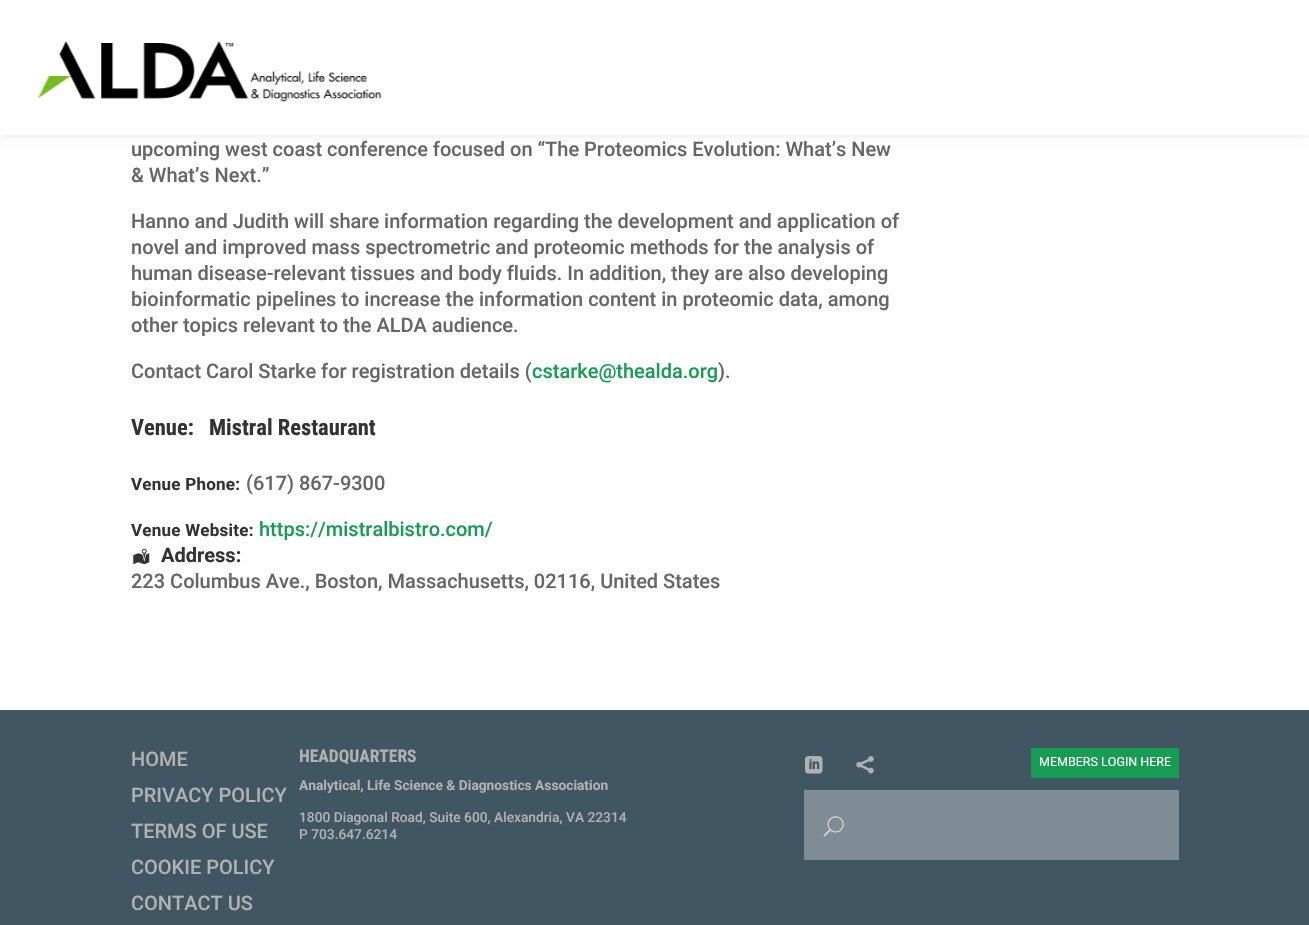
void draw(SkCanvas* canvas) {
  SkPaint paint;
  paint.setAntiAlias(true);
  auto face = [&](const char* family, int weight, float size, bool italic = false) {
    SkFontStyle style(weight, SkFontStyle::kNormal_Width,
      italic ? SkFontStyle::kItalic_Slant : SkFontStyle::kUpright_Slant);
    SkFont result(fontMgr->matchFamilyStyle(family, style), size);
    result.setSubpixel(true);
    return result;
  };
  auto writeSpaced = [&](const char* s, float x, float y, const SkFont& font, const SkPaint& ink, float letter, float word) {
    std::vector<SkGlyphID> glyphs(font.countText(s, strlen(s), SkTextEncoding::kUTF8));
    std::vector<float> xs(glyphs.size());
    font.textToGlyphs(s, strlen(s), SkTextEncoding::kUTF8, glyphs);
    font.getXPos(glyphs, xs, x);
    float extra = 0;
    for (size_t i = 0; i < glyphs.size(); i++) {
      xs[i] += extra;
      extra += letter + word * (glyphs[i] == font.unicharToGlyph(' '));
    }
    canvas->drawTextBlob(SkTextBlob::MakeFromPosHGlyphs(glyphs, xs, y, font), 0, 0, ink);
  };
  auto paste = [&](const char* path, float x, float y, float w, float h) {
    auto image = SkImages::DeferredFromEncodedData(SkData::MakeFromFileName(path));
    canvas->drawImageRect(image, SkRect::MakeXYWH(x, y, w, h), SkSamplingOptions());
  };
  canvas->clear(0xffffffff);
  paint.setColor(0x1a000000);
  paint.setMaskFilter(SkMaskFilter::MakeBlur(kNormal_SkBlurStyle, 4.5f));
  canvas->drawRect(SkRect::MakeXYWH(0, 0, 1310, 135), paint);
  paint.setMaskFilter(nullptr);
  paint.setColor(0xffffffff);
  canvas->drawRect(SkRect::MakeXYWH(0, 0, 1309, 135), paint);
  paste("img/1.png", 38, 41, 344, 61);
  paste("img/2.png", 133, 548, 17, 17);
  paint.setColor(0xff405662);
  canvas->drawRect(SkRect::MakeXYWH(0, 710, 1309, 215), paint);
  paste("img/3.png", 805, 756, 18, 18);
  paste("img/4.png", 856, 756, 18, 18);
  paint.setColor(0xff169d53);
  canvas->drawRect(SkRect::MakeXYWH(1031, 748, 148, 30), paint);
  paint.setColor(0xff7f8c95);
  canvas->drawRect(SkRect::MakeXYWH(804, 790, 375, 70), paint);
  paste("img/5.png", 823, 816, 21, 21);
  auto f0 = face("Roboto", 500, 20);
  paint.setColor(0xff666666);
  {
    const struct { const char* s; float x, y; } items[] = {
      {"upcoming west coast conference focused on “The Proteomics Evolution: What’s New", 131, 156},
      {"& What’s Next.”", 131, 182},
      {"Hanno and Judith will share information regarding the development and application of", 131, 228},
      {"novel and improved mass spectrometric and proteomic methods for the analysis of", 131, 254},
      {"human disease-relevant tissues and body fluids. In addition, they are also developing", 131, 280},
      {"bioinformatic pipelines to increase the information content in proteomic data, among", 131, 306},
      {"other topics relevant to the ALDA audience.", 131, 332},
      {"Contact Carol Starke for registration details (", 131, 378},
    };
    for (auto [s, x, y] : items) {
      canvas->drawString(s, x, y, f0, paint);
    }
  }
  paint.setColor(0xff169d53);
  canvas->drawString("cstarke@thealda.org", 532, 378, f0, paint);
  paint.setColor(0xff666666);
  canvas->drawString(").", 718, 378, f0, paint);
  auto f1 = face("Roboto Condensed", 700, 22.5f);
  paint.setColor(0xff333333);
  canvas->drawString("Venue:", 131, 435, f1, paint);
  canvas->drawString("Mistral Restaurant", 209, 435, f1, paint);
  auto f2 = face("Roboto", 700, 17);
  writeSpaced("Venue Phone:", 131, 490, f2, paint, 0.25f, 0);
  paint.setColor(0xff666666);
  canvas->drawString("(617) 867-9300", 246, 490, f0, paint);
  paint.setColor(0xff333333);
  writeSpaced("Venue Website:", 131, 536, f2, paint, 0.25f, 0);
  paint.setColor(0xff169d53);
  canvas->drawString("https://mistralbistro.com/", 259, 536, f0, paint);
  auto f3 = face("Roboto", 700, 20);
  paint.setColor(0xff333333);
  canvas->drawString("Address:", 161, 562, f3, paint);
  paint.setColor(0xff666666);
  canvas->drawString("223 Columbus Ave., Boston, Massachusetts, 02116, United States", 131, 588, f0, paint);
  paint.setColor(0xffb2b1b1);
  {
    const struct { const char* s; float x, y; } items[] = {
      {"HOME", 131, 766},
      {"PRIVACY POLICY", 131, 802},
      {"TERMS OF USE", 131, 838},
      {"COOKIE POLICY", 131, 874},
      {"CONTACT US", 131, 910},
    };
    for (auto [s, x, y] : items) {
      canvas->drawString(s, x, y, f0, paint);
    }
  }
  auto f4 = face("Roboto Condensed", 700, 17.5f);
  canvas->drawString("HEADQUARTERS", 299, 762, f4, paint);
  auto f5 = face("Roboto", 700, 13.75f);
  canvas->drawString("Analytical, Life Science & Diagnostics Association", 299, 790, f5, paint);
  auto f6 = face("Roboto", 500, 13.75f);
  canvas->drawString("1800 Diagonal Road, Suite 600, Alexandria, VA 22314", 299, 822, f6, paint);
  canvas->drawString("P 703.647.6214", 299, 839, f6, paint);
  auto f7 = face("Roboto", 400, 12.5f);
  paint.setColor(0xffffffff);
  canvas->drawString("MEMBERS LOGIN HERE", 1039, 766, f7, paint);
}
